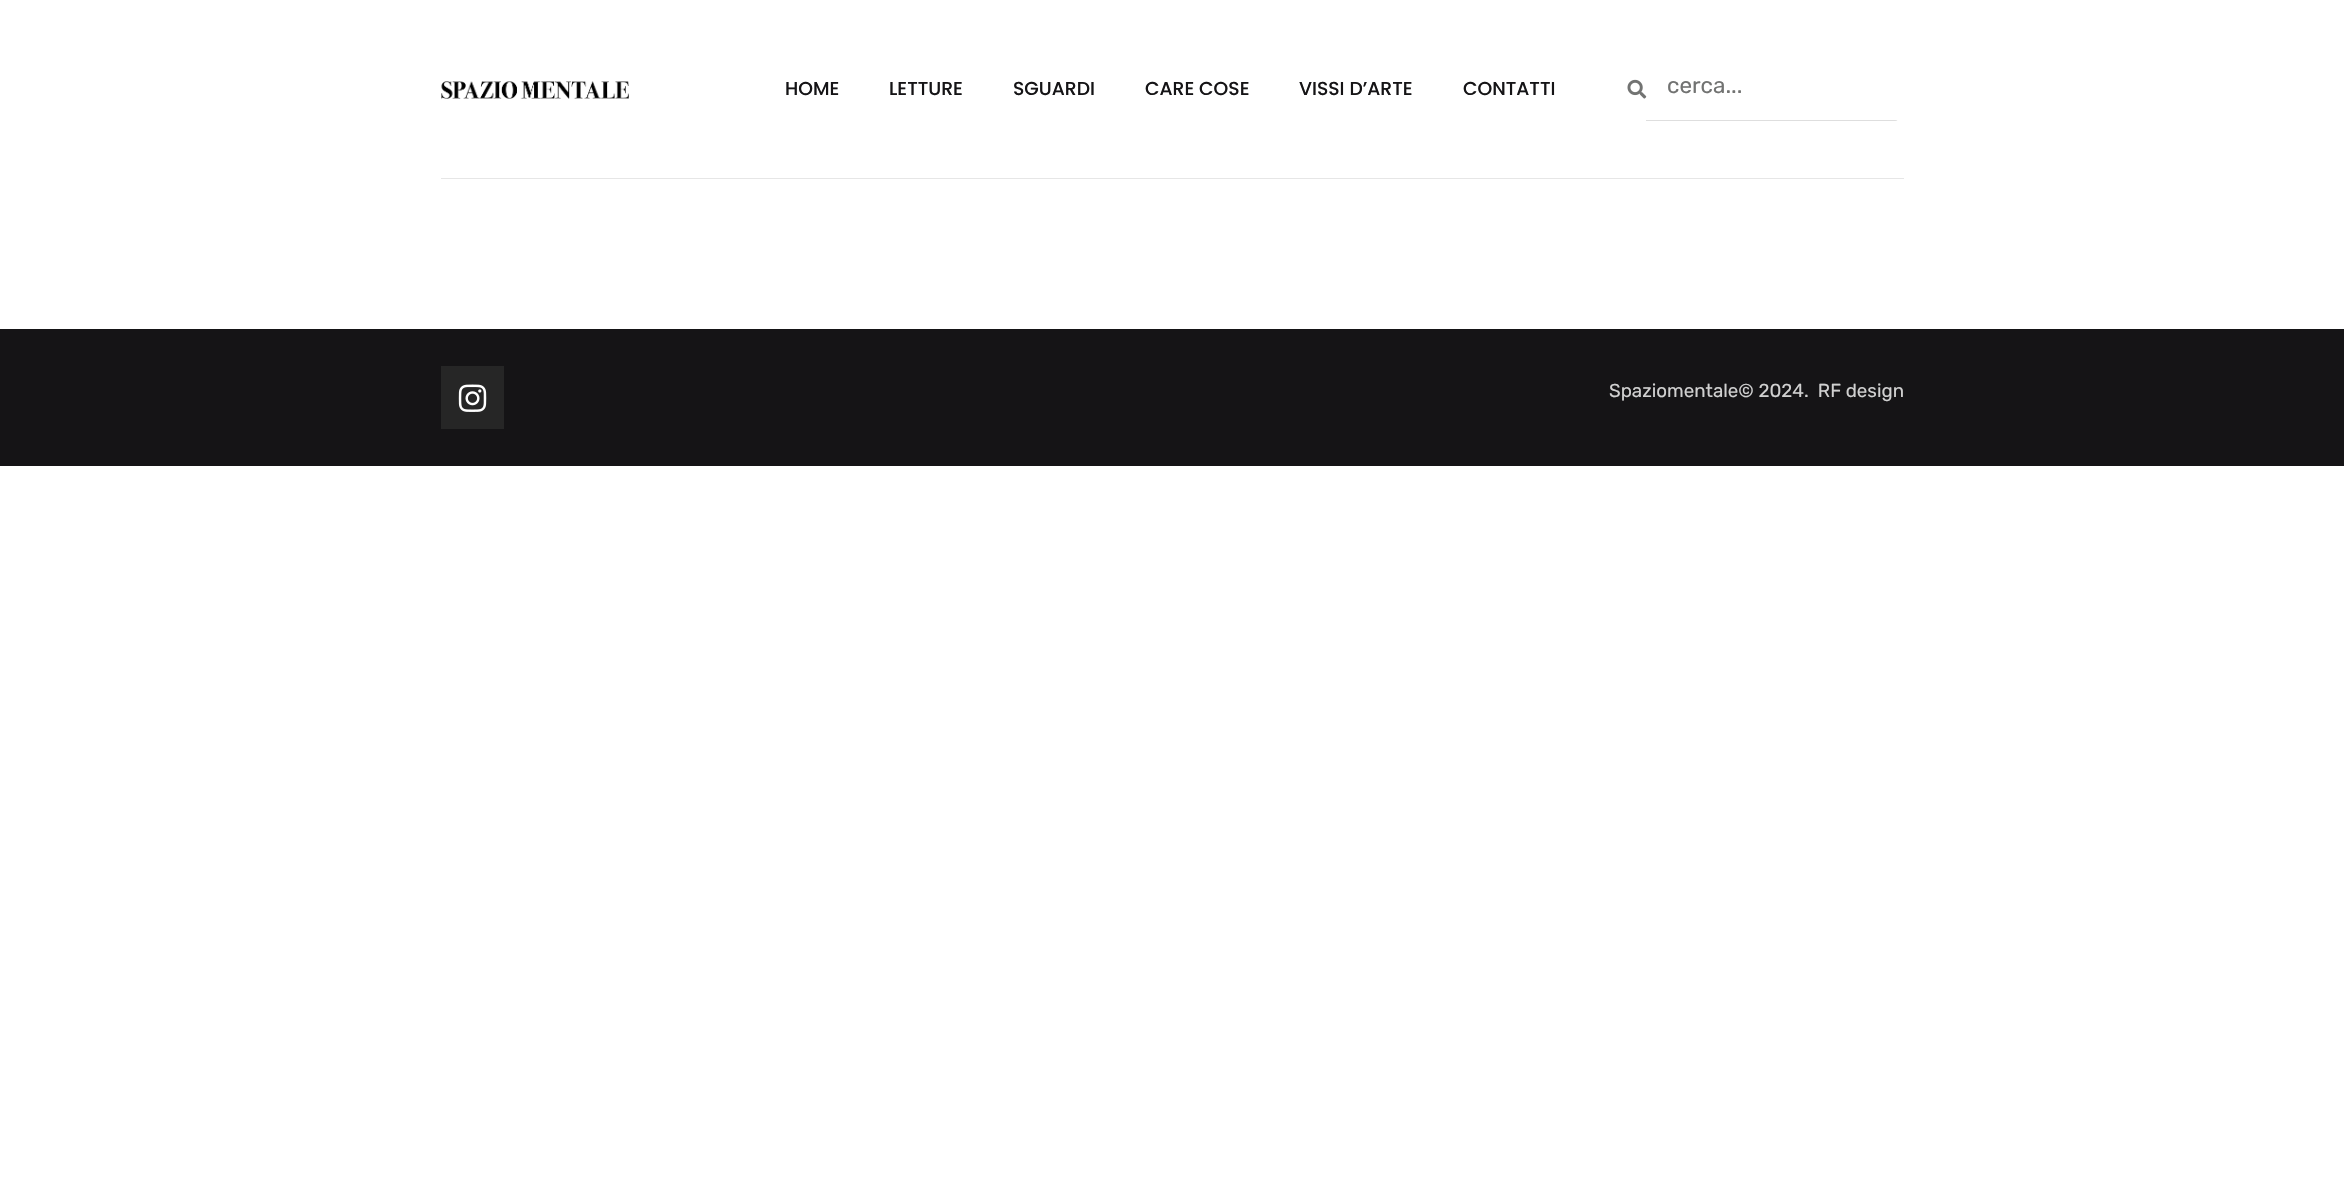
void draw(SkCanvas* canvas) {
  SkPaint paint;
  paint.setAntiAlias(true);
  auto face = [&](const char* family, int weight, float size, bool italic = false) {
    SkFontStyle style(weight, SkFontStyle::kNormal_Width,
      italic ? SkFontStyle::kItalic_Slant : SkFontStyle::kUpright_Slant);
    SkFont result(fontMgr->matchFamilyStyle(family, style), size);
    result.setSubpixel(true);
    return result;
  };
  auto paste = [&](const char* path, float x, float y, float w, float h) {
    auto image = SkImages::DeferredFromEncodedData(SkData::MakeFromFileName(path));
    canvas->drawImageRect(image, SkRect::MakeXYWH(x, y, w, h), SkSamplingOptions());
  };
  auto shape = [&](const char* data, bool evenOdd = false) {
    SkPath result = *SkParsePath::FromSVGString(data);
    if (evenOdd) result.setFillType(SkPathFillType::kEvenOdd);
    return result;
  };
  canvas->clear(0xffffffff);
  paste("img/1.png", 441, 81, 188, 18);
  paste("img/2.png", 1627, 79, 20, 20);
  canvas->save();
  canvas->clipPath(shape("M1610 56H1895C1897 56 1899 58 1899 60V117C1899 119 1897 121 1895 121H1610C1608 121 1606 119 1606 117V60C1606 58 1608 56 1610 56Z"), true);
  paint.setColor(0xffdedede);
  canvas->drawRect(SkRect::MakeXYWH(1646, 120, 253, 1), paint);
  canvas->restore();
  {
    const struct { float x, y, w, h; SkColor color; } items[] = {
      {441, 178, 1463, 1, 0xffe6e6e6},
      {0, 329, 2344, 137, 0xff151416},
      {441, 366, 63, 63, 0xff262626},
    };
    for (auto [x, y, w, h, color] : items) {
      paint.setColor(color);
      canvas->drawRect(SkRect::MakeXYWH(x, y, w, h), paint);
    }
  }
  paste("img/3.png", 458, 384, 29, 28);
  auto f0 = face("Poppins", 500, 18.75f);
  paint.setColor(0xff151416);
  {
    const struct { const char* s; float x, y; } items[] = {
      {"HOME", 785, 95},
      {"LETTURE", 889, 95},
      {"SGUARDI", 1013, 95},
      {"CARE COSE", 1145, 95},
      {"VISSI D’ARTE", 1299, 95},
      {"CONTATTI", 1463, 95},
    };
    for (auto [s, x, y] : items) {
      canvas->drawString(s, x, y, f0, paint);
    }
  }
  auto f1 = face("Rubik", 400, 22.5f);
  paint.setColor(0xff727372);
  canvas->drawString("cerca...", 1667, 93, f1, paint);
  auto f2 = face("Rubik", 400, 18.75f);
  paint.setColor(0xffd0d0d0);
  canvas->drawString("Spaziomentale© 2024.  RF design", 1609, 397, f2, paint);
}
